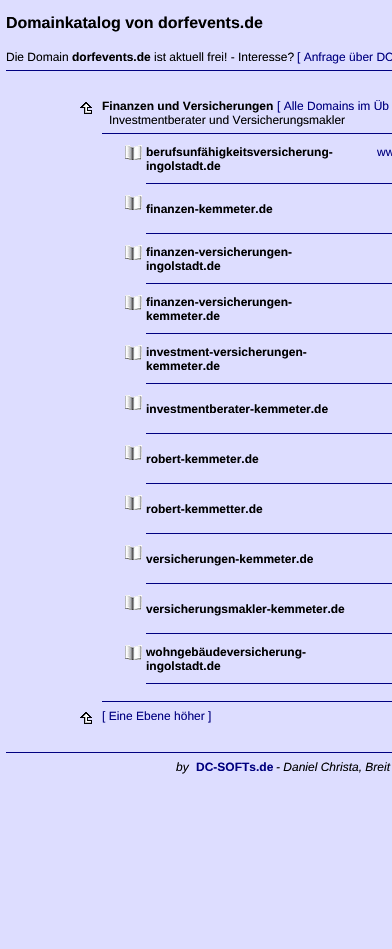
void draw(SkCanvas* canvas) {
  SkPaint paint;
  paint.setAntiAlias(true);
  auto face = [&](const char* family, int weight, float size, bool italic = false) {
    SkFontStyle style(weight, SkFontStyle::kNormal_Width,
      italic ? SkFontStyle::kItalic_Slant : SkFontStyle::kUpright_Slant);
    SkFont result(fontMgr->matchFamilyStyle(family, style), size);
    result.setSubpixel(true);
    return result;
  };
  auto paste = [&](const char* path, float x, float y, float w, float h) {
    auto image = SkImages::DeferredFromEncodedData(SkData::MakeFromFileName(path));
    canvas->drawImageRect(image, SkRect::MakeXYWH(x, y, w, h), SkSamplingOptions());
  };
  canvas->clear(0xffddddff);
  paint.setColor(0xff000080);
  canvas->drawRect(SkRect::MakeXYWH(6, 70, 386, 1), paint);
  paste("img/1.png", 80, 102, 12, 12);
  canvas->drawRect(SkRect::MakeXYWH(102, 133, 290, 1), paint);
  paste("img/2.png", 125, 145, 17, 15);
  canvas->drawRect(SkRect::MakeXYWH(146, 183, 246, 1), paint);
  paste("img/2.png", 125, 195, 17, 15);
  canvas->drawRect(SkRect::MakeXYWH(146, 233, 246, 1), paint);
  paste("img/2.png", 125, 245, 17, 15);
  canvas->drawRect(SkRect::MakeXYWH(146, 283, 246, 1), paint);
  paste("img/2.png", 125, 295, 17, 15);
  canvas->drawRect(SkRect::MakeXYWH(146, 333, 246, 1), paint);
  paste("img/2.png", 125, 345, 17, 15);
  canvas->drawRect(SkRect::MakeXYWH(146, 383, 246, 1), paint);
  paste("img/2.png", 125, 395, 17, 15);
  canvas->drawRect(SkRect::MakeXYWH(146, 433, 246, 1), paint);
  paste("img/2.png", 125, 445, 17, 15);
  canvas->drawRect(SkRect::MakeXYWH(146, 483, 246, 1), paint);
  paste("img/2.png", 125, 495, 17, 15);
  canvas->drawRect(SkRect::MakeXYWH(146, 533, 246, 1), paint);
  paste("img/2.png", 125, 545, 17, 15);
  canvas->drawRect(SkRect::MakeXYWH(146, 583, 246, 1), paint);
  paste("img/2.png", 125, 595, 17, 15);
  canvas->drawRect(SkRect::MakeXYWH(146, 633, 246, 1), paint);
  paste("img/2.png", 125, 645, 17, 15);
  canvas->drawRect(SkRect::MakeXYWH(146, 683, 246, 1), paint);
  paste("img/1.png", 80, 712, 12, 12);
  canvas->drawRect(SkRect::MakeXYWH(102, 701, 290, 1), paint);
  canvas->drawRect(SkRect::MakeXYWH(6, 752, 386, 1), paint);
  auto f0 = face("Liberation Sans", 700, 16);
  paint.setColor(0xff000000);
  canvas->drawString("Domainkatalog von dorfevents.de", 6, 28, f0, paint);
  auto f1 = face("Liberation Sans", 400, 12);
  canvas->drawString("Die Domain", 6, 61, f1, paint);
  auto f2 = face("Liberation Sans", 700, 12);
  canvas->drawString("dorfevents.de", 72, 61, f2, paint);
  canvas->drawString("ist aktuell frei! - Interesse?", 154, 61, f1, paint);
  paint.setColor(0xff000080);
  canvas->drawString("[ Anfrage über DC", 297, 61, f1, paint);
  paint.setColor(0xff000000);
  canvas->drawString("Finanzen und Versicherungen", 102, 110, f2, paint);
  paint.setColor(0xff000080);
  canvas->drawString("[ Alle Domains im Üb", 277, 110, f1, paint);
  paint.setColor(0xff000000);
  canvas->drawString("Investmentberater und Versicherungsmakler", 109, 124, f1, paint);
  canvas->drawString("berufsunfähigkeitsversicherung-", 146, 156, f2, paint);
  canvas->drawString("ingolstadt.de", 146, 170, f2, paint);
  paint.setColor(0xff000080);
  canvas->drawString("ww", 377, 156, f1, paint);
  paint.setColor(0xff000000);
  {
    const struct { const char* s; float x, y; } items[] = {
      {"finanzen-kemmeter.de", 146, 213},
      {"finanzen-versicherungen-", 146, 256},
      {"ingolstadt.de", 146, 270},
      {"finanzen-versicherungen-", 146, 306},
      {"kemmeter.de", 146, 320},
      {"investment-versicherungen-", 146, 356},
      {"kemmeter.de", 146, 370},
      {"investmentberater-kemmeter.de", 146, 413},
      {"robert-kemmeter.de", 146, 463},
      {"robert-kemmetter.de", 146, 513},
      {"versicherungen-kemmeter.de", 146, 563},
      {"versicherungsmakler-kemmeter.de", 146, 613},
      {"wohngebäudeversicherung-", 146, 656},
      {"ingolstadt.de", 146, 670},
    };
    for (auto [s, x, y] : items) {
      canvas->drawString(s, x, y, f2, paint);
    }
  }
  paint.setColor(0xff000080);
  canvas->drawString("[ Eine Ebene höher ]", 102, 720, f1, paint);
  auto f3 = face("Liberation Sans", 400, 12, true);
  paint.setColor(0xff000000);
  canvas->drawString("by", 176, 771, f3, paint);
  paint.setColor(0xff000080);
  canvas->drawString("DC-SOFTs.de", 196, 771, f2, paint);
  paint.setColor(0xff000000);
  canvas->drawString("- Daniel Christa, Breit", 276, 771, f3, paint);
}
